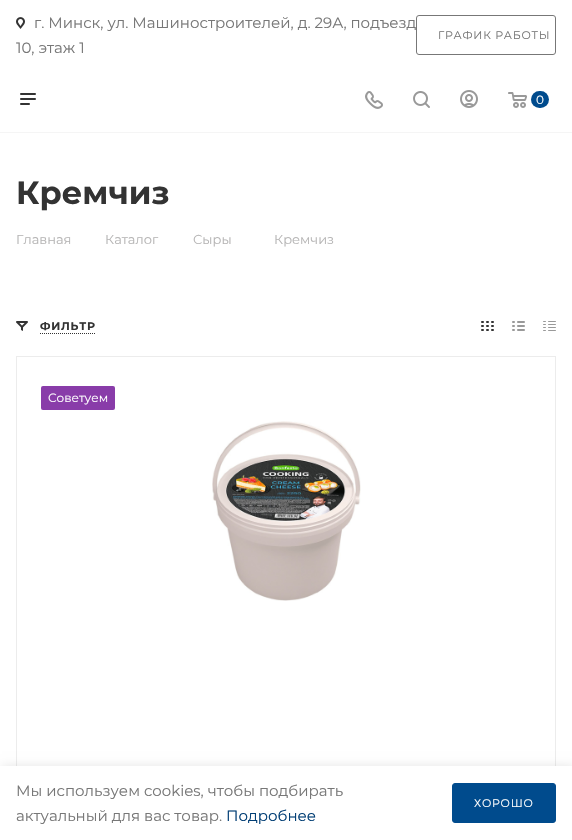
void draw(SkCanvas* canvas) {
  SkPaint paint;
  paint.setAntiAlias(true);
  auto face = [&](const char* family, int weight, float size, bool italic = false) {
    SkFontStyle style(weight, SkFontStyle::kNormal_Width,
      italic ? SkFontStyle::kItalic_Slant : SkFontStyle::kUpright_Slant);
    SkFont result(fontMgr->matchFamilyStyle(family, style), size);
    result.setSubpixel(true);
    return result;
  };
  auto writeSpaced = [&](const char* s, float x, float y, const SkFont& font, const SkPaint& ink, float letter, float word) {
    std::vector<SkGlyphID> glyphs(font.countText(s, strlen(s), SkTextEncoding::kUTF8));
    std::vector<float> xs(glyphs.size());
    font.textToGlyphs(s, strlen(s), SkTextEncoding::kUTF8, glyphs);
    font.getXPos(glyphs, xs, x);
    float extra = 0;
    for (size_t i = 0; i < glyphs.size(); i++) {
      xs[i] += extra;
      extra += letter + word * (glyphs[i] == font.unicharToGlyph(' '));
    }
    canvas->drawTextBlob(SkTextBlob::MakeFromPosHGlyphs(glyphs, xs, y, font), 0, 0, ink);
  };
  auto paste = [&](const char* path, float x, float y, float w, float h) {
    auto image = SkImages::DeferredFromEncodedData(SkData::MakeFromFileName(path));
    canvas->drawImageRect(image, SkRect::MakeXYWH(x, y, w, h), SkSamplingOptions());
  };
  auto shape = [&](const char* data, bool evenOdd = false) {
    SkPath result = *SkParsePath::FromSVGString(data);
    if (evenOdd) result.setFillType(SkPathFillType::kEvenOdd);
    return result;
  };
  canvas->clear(0xffffffff);
  paste("img/1.png", 16, 17, 9, 12);
  paint.setStroke(true);
  paint.setStrokeWidth(1);
  paint.setColor(0xff777777);
  canvas->drawRoundRect(SkRect::MakeXYWH(416.5f, 15.5f, 139, 39), 2.5f, 2.5f, paint);
  paint.setStroke(false);
  paint.setColor(0xfff5f5f5);
  canvas->drawRect(SkRect::MakeXYWH(0, 132, 572, 1), paint);
  paste("img/2.png", 20, 93, 16, 12);
  paste("img/3.png", 365, 91, 18, 18);
  paste("img/4.png", 413, 91, 17, 17);
  paste("img/5.png", 460, 90, 18, 18);
  paste("img/6.png", 508, 92, 19, 16);
  paint.setColor(0xff004b8d);
  canvas->drawRoundRect(SkRect::MakeXYWH(531, 91, 18, 17), 8.5f, 8.5f, paint);
  paste("img/7.png", 16, 321, 12, 10);
  paint.setStroke(true);
  paint.setColor(0xff333333);
  paint.setPathEffect(SkDashPathEffect::Make({{1, 1}}, 0));
  canvas->drawPath(shape("M40 333.5H96"), paint);
  paint.setPathEffect(nullptr);
  paste("img/8.png", 481, 321, 13, 10);
  paste("img/9.png", 512, 321, 13, 10);
  paste("img/10.png", 543, 321, 13, 10);
  paint.setColor(0xffececec);
  canvas->drawRect(SkRect::MakeXYWH(16.5f, 356.5f, 539, 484), paint);
  paint.setStroke(false);
  paint.setColor(0xff893ca9);
  canvas->drawRoundRect(SkRect::MakeXYWH(41, 386, 74, 24), 2, 2, paint);
  paste("img/11.png", 212, 421, 149, 180);
  paint.setColor(0x1a000000);
  paint.setMaskFilter(SkMaskFilter::MakeBlur(kNormal_SkBlurStyle, 5));
  canvas->drawRect(SkRect::MakeXYWH(2, 766, 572, 74), paint);
  paint.setMaskFilter(nullptr);
  paint.setColor(0xffffffff);
  canvas->drawRect(SkRect::MakeXYWH(0, 766, 572, 74), paint);
  paint.setColor(0xff004b8d);
  canvas->drawRoundRect(SkRect::MakeXYWH(452.5f, 783.5f, 103, 39), 2.5f, 2.5f, paint);
  paint.setStroke(true);
  canvas->drawRoundRect(SkRect::MakeXYWH(452.5f, 783.5f, 103, 39), 2.5f, 2.5f, paint);
  auto f0 = face("Montserrat", 400, 15);
  paint.setStroke(false);
  paint.setColor(0xff777777);
  canvas->drawString("г. Минск, ул. Машиностроителей, д. 29А, подъезд", 34, 28, f0, paint);
  canvas->drawString("10, этаж 1", 16, 53, f0, paint);
  auto f1 = face("Montserrat", 400, 11);
  writeSpaced("ГРАФИК РАБОТЫ", 438, 39, f1, paint, 0.75f, 0);
  auto f2 = face("Montserrat", 400, 12);
  paint.setColor(0xffffffff);
  canvas->drawString("0", 536, 104, f2, paint);
  auto f3 = face("Montserrat", 700, 32);
  paint.setColor(0xff333333);
  canvas->drawString("Кремчиз", 16, 204, f3, paint);
  auto f4 = face("Montserrat", 400, 13);
  paint.setColor(0xffb6b5b5);
  {
    const struct { const char* s; float x, y; } items[] = {
      {"Главная", 16, 244},
      {"Каталог", 105, 244},
      {"Сыры", 193, 244},
      {"Кремчиз", 274, 244},
    };
    for (auto [s, x, y] : items) {
      canvas->drawString(s, x, y, f4, paint);
    }
  }
  auto f5 = face("Montserrat", 700, 11);
  paint.setColor(0xff333333);
  writeSpaced("ФИЛЬТР", 40, 330, f5, paint, 0.75f, 0);
  paint.setColor(0xffffffff);
  canvas->drawString("Советуем", 48, 402, f2, paint);
  paint.setColor(0xff777777);
  canvas->drawString("Мы используем cookies, чтобы подбирать", 16, 796, f0, paint);
  canvas->drawString("актуальный для вас товар.", 16, 821, f0, paint);
  paint.setColor(0xff003d74);
  canvas->drawString("Подробнее", 226, 821, f0, paint);
  paint.setColor(0xffffffff);
  writeSpaced("ХОРОШО", 474, 807, f1, paint, 0.75f, 0);
}
